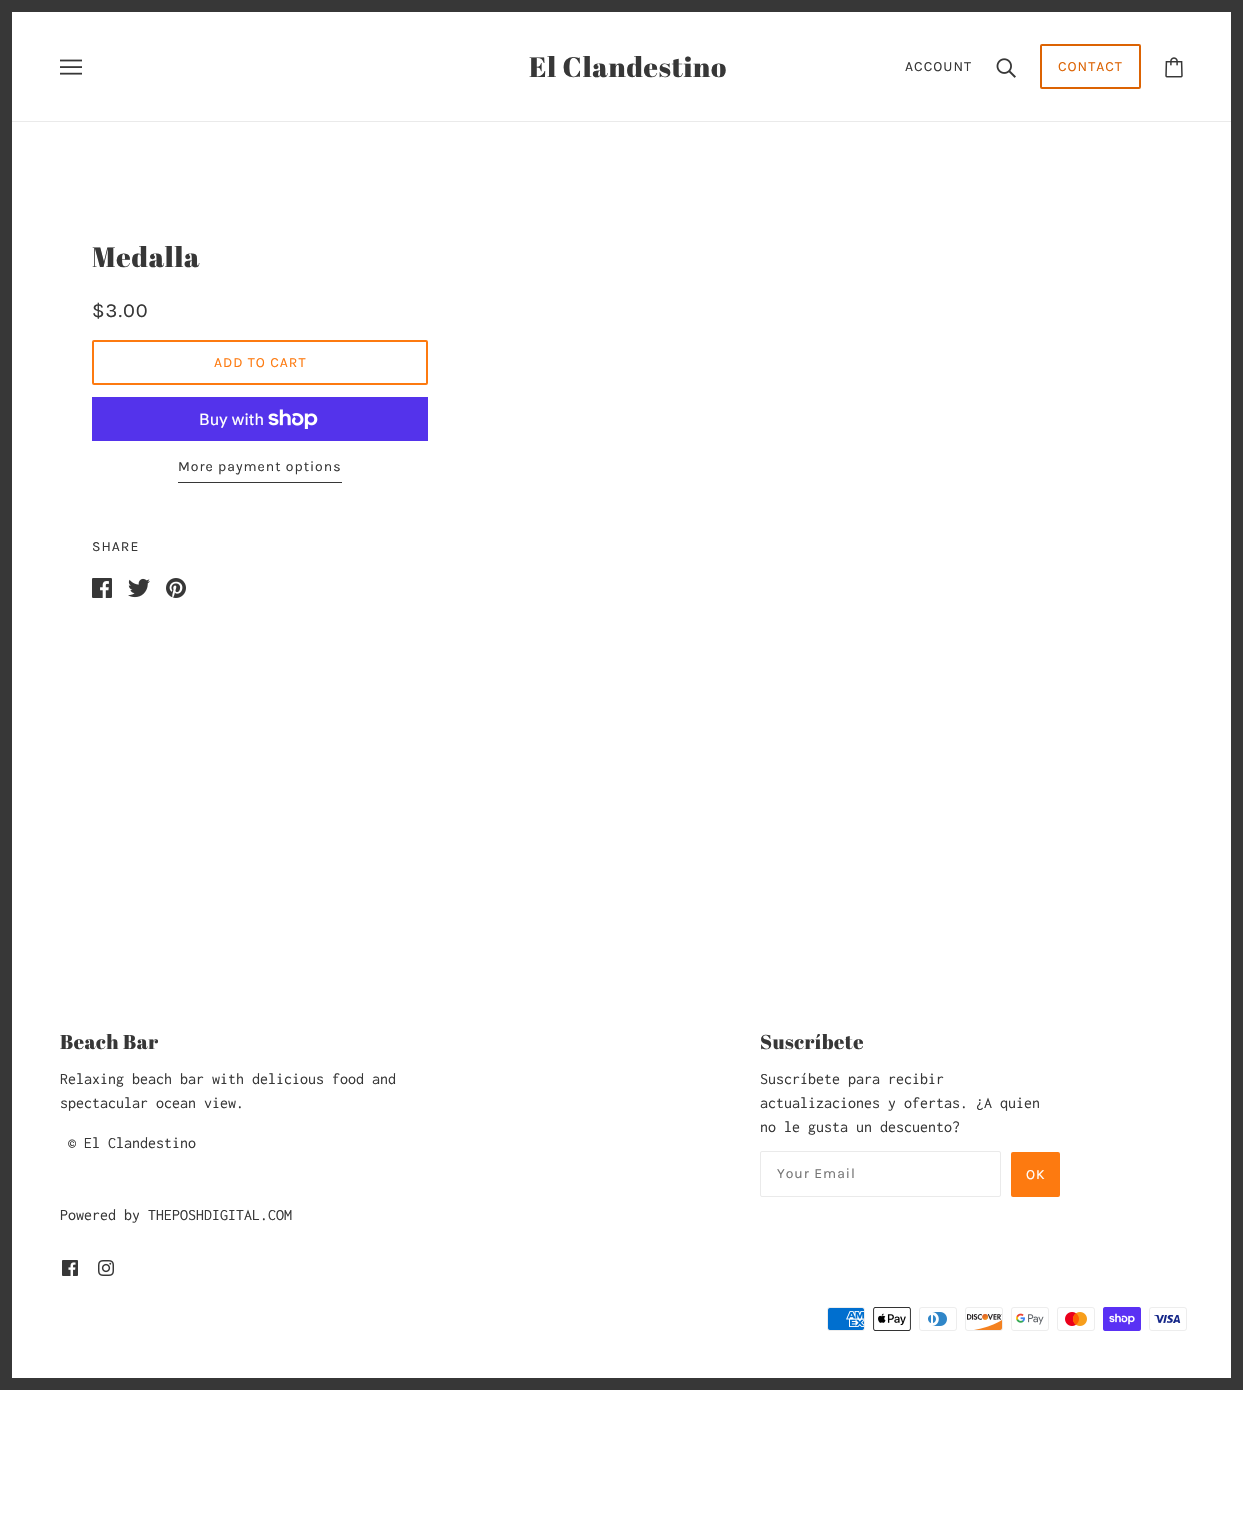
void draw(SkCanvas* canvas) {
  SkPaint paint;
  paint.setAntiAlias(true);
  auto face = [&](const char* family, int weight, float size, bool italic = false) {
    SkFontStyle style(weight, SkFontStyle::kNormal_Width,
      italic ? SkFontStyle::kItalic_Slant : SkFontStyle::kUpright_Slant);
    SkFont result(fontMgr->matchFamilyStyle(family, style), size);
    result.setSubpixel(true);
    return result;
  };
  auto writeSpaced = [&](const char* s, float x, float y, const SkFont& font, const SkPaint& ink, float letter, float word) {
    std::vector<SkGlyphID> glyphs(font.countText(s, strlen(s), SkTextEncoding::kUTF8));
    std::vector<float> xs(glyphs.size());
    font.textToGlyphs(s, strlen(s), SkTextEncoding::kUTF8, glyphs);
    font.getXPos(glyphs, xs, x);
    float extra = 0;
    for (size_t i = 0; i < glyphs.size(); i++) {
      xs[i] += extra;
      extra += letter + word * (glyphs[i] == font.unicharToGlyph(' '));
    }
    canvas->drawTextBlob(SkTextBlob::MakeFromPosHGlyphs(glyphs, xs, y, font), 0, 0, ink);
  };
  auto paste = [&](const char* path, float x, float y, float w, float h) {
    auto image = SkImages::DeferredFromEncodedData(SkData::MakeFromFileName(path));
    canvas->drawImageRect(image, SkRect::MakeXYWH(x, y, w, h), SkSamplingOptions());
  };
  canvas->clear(0xffffffff);
  paint.setStroke(true);
  paint.setStrokeWidth(12);
  paint.setColor(0xff373737);
  canvas->drawRect(SkRect::MakeXYWH(6, 6, 1231, 1378), paint);
  paint.setStroke(false);
  paint.setColor(0xffeaeaea);
  canvas->drawRect(SkRect::MakeXYWH(12, 121, 1219, 1), paint);
  paste("img/1.png", 60, 59, 22, 16);
  paste("img/2.png", 996, 58, 20, 20);
  paint.setStroke(true);
  paint.setStrokeWidth(2);
  paint.setColor(0xffdc6303);
  canvas->drawRoundRect(SkRect::MakeXYWH(1041, 45, 99, 43), 1, 1, paint);
  paste("img/3.png", 1165, 57, 18, 21);
  paint.setColor(0xfffd7a10);
  canvas->drawRoundRect(SkRect::MakeXYWH(93, 341, 334, 43), 1, 1, paint);
  paint.setStroke(false);
  paint.setColor(0xff5433eb);
  canvas->drawRect(SkRect::MakeXYWH(92, 397, 336, 44), paint);
  paste("img/4.png", 268, 409, 50, 20);
  paint.setColor(0xff373737);
  canvas->drawRect(SkRect::MakeXYWH(178, 482, 164, 1), paint);
  paste("img/5.png", 92, 578, 20, 20);
  paste("img/6.png", 128, 578, 22, 20);
  paste("img/7.png", 166, 578, 20, 20);
  paste("img/8.png", 62, 1260, 16, 16);
  paste("img/9.png", 98, 1260, 16, 16);
  paint.setStroke(true);
  paint.setStrokeWidth(1);
  paint.setColor(0xffeaeaea);
  canvas->drawRoundRect(SkRect::MakeXYWH(760.5f, 1151.5f, 240, 45), 1.5f, 1.5f, paint);
  paint.setStroke(false);
  paint.setColor(0xfffd7a10);
  canvas->drawRoundRect(SkRect::MakeXYWH(1011, 1152, 49, 45), 2, 2, paint);
  paste("img/10.png", 827, 1307, 38, 24);
  paste("img/11.png", 873, 1307, 38, 24);
  paste("img/12.png", 919, 1307, 38, 24);
  paste("img/13.png", 965, 1307, 38, 24);
  paste("img/14.png", 1011, 1307, 38, 24);
  paste("img/15.png", 1057, 1307, 38, 24);
  paste("img/16.png", 1103, 1307, 38, 24);
  paste("img/17.png", 1149, 1307, 38, 24);
  auto f0 = face("Abril Fatface", 400, 28);
  paint.setColor(0xff373737);
  writeSpaced("El Clandestino", 529, 77, f0, paint, 0.75f, 0);
  auto f1 = face("Karla", 400, 14);
  writeSpaced("ACCOUNT", 905, 71, f1, paint, 1, 0);
  paint.setColor(0xffdc6303);
  writeSpaced("CONTACT", 1058, 71, f1, paint, 1, 0);
  paint.setColor(0xff373737);
  writeSpaced("Medalla", 92, 267, f0, paint, 0.75f, 0);
  auto f2 = face("Karla", 400, 20);
  writeSpaced("$3.00", 92, 317, f2, paint, 1, 0);
  paint.setColor(0xfffd7a10);
  writeSpaced("ADD TO CART", 214, 367, f1, paint, 1, 0);
  auto f3 = face("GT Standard", 400, 16);
  paint.setColor(0xffffffff);
  canvas->drawString("Buy with", 199, 425, f3, paint);
  paint.setColor(0xff373737);
  writeSpaced("More payment options", 178, 471, f1, paint, 1, 0);
  writeSpaced("SHARE", 92, 551, f1, paint, 1, 0);
  auto f4 = face("Abril Fatface", 400, 20);
  writeSpaced("Beach Bar", 60, 1049, f4, paint, 0.5f, 0);
  auto f5 = face("Inconsolata", 400, 16);
  {
    const struct { const char* s; float x, y; } items[] = {
      {"Relaxing beach bar with delicious food and", 60, 1084},
      {"spectacular ocean view.", 60, 1108},
      {"© El Clandestino", 68, 1148},
      {"Powered by THEPOSHDIGITAL.COM", 60, 1220},
    };
    for (auto [s, x, y] : items) {
      canvas->drawString(s, x, y, f5, paint);
    }
  }
  writeSpaced("Suscríbete", 760, 1049, f4, paint, 0.5f, 0);
  {
    const struct { const char* s; float x, y; } items[] = {
      {"Suscríbete para recibir", 760, 1084},
      {"actualizaciones y ofertas. ¿A quien", 760, 1108},
      {"no le gusta un descuento?", 760, 1132},
    };
    for (auto [s, x, y] : items) {
      canvas->drawString(s, x, y, f5, paint);
    }
  }
  paint.setColor(0xff757575);
  writeSpaced("Your Email", 777, 1178, f1, paint, 1, 0);
  paint.setColor(0xffffffff);
  writeSpaced("OK", 1026, 1179, f1, paint, 1, 0);
}
